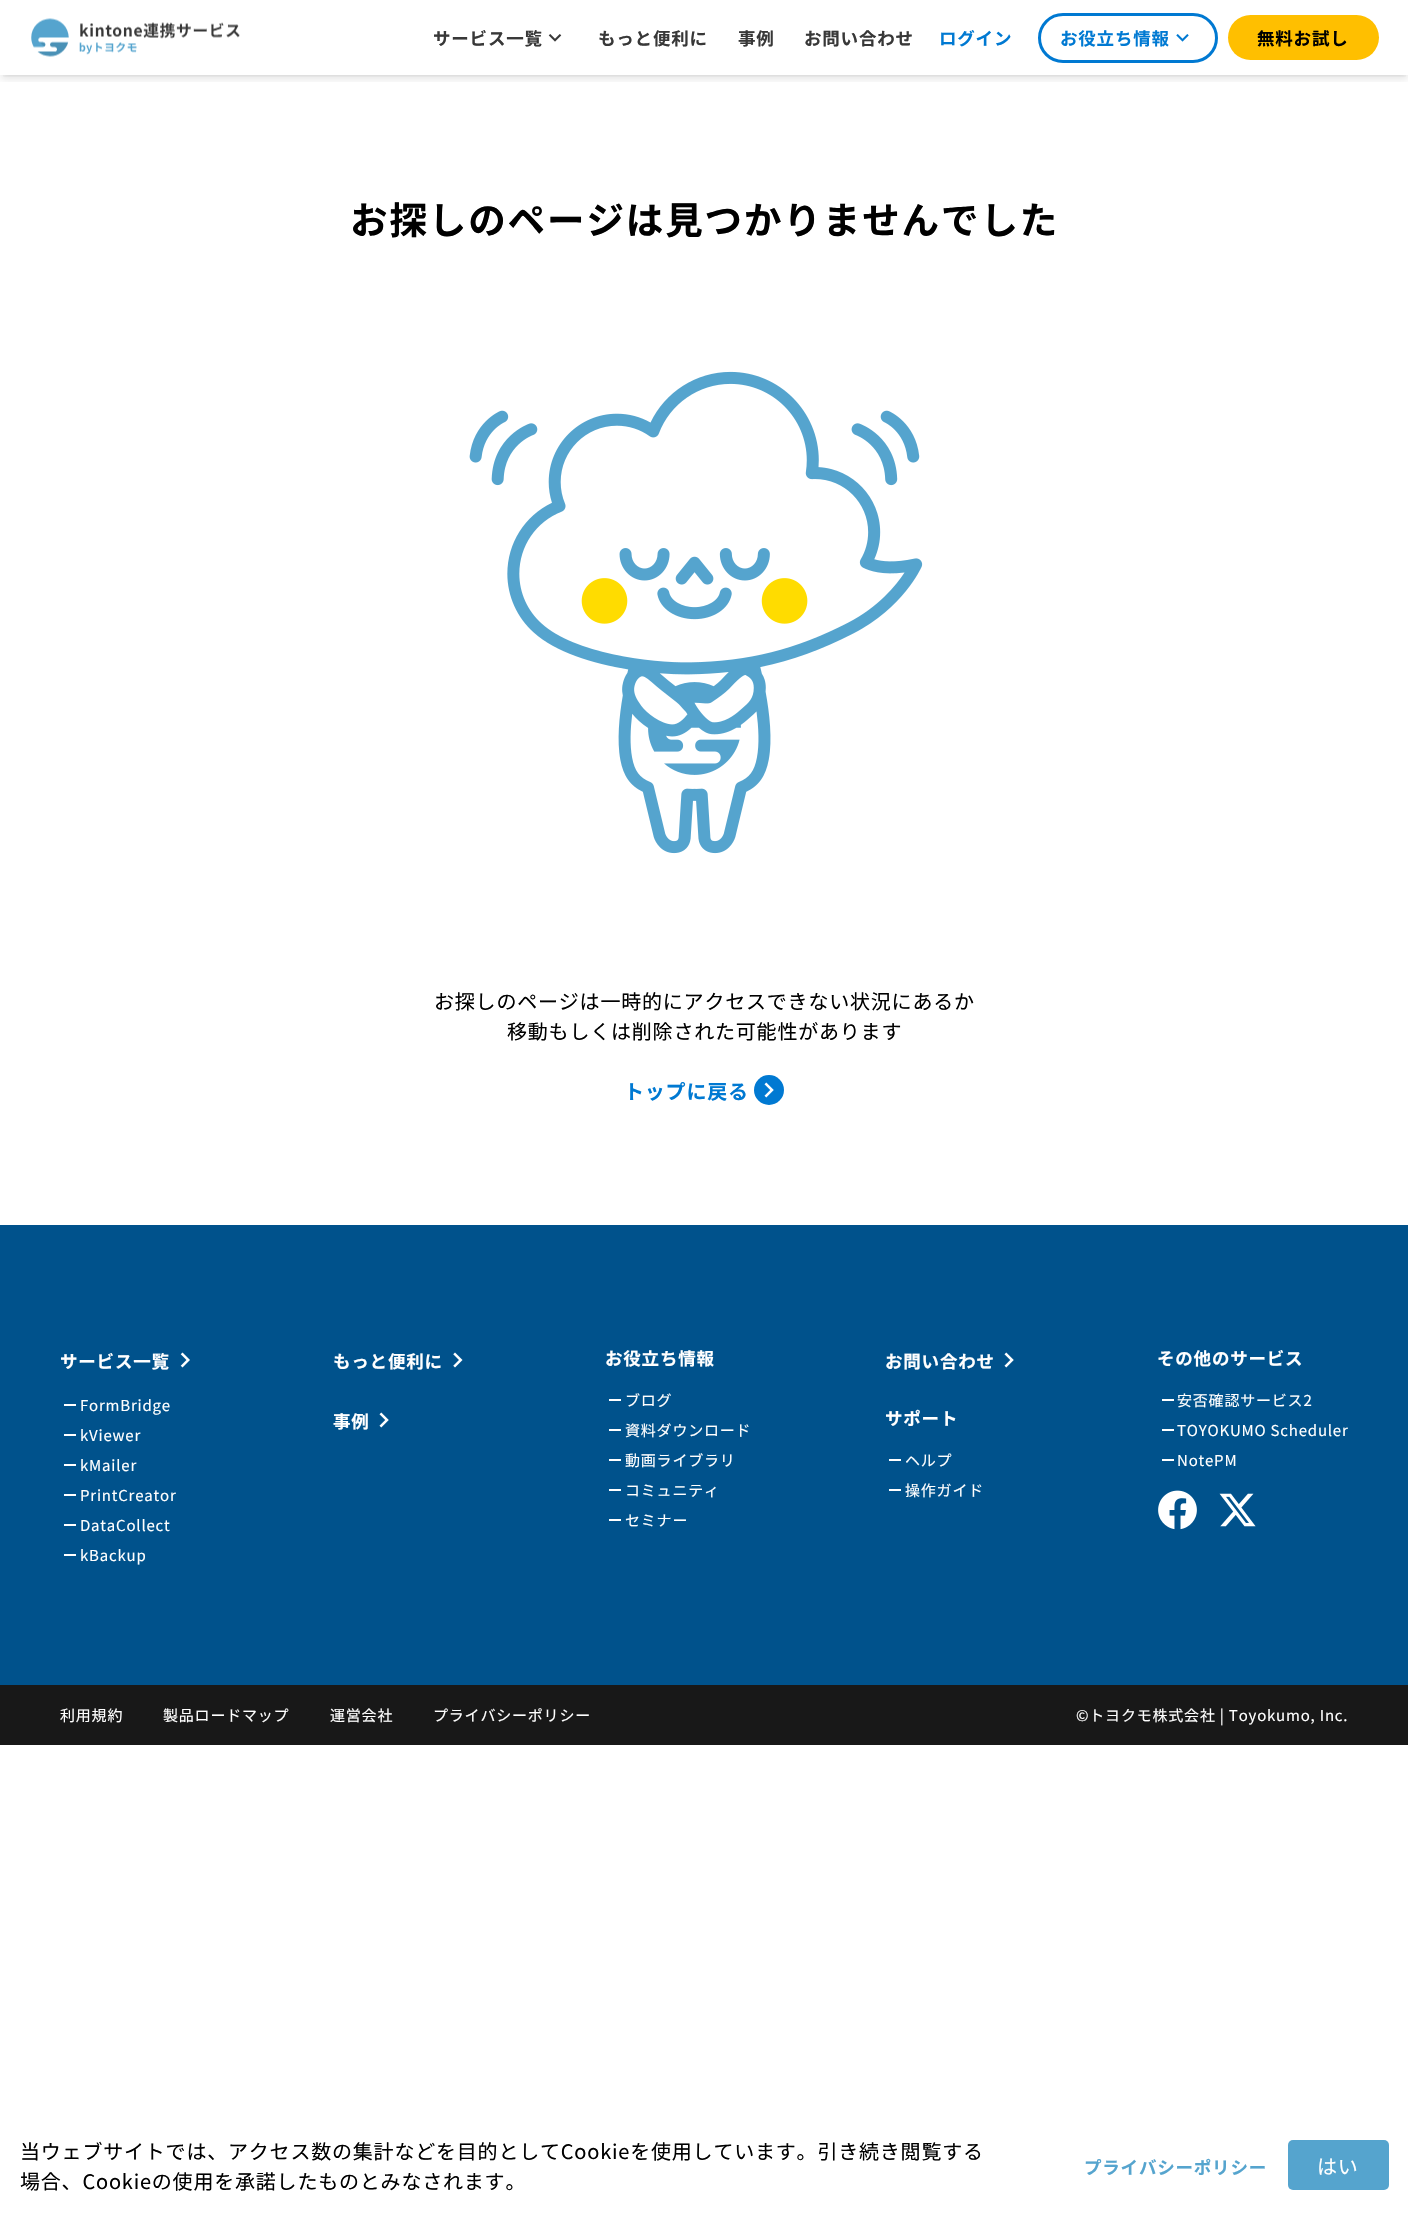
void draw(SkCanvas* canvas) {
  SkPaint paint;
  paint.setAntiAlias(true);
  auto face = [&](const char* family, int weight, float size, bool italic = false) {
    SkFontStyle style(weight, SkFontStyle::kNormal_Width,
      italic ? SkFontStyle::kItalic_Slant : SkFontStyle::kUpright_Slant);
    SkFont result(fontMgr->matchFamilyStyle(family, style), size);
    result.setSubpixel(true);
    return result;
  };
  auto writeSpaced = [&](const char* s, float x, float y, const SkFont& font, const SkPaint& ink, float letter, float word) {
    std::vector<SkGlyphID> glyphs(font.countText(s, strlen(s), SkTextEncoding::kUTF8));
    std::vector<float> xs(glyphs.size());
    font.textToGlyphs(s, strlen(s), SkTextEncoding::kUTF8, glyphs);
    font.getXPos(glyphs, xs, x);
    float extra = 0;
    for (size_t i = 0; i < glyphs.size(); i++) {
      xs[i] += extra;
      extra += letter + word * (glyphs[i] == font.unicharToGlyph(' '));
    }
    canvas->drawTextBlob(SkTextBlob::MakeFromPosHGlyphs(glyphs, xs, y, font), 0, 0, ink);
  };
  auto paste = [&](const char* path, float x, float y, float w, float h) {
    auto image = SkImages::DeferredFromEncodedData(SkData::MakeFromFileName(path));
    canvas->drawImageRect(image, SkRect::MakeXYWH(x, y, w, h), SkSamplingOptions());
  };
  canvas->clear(0xffffffff);
  canvas->save();
  canvas->clipRect(SkRect::MakeXYWH(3, 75, 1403, 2));
  paint.setColor(0x1a000000);
  paint.setMaskFilter(SkMaskFilter::MakeBlur(kNormal_SkBlurStyle, 2.5f));
  canvas->drawRect(SkRect::MakeXYWH(3, 5, 1403, 70), paint);
  paint.setMaskFilter(nullptr);
  canvas->restore();
  canvas->save();
  canvas->clipRect(SkRect::MakeXYWH(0, 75, 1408, 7));
  paint.setMaskFilter(SkMaskFilter::MakeBlur(kNormal_SkBlurStyle, 4));
  canvas->drawRect(SkRect::MakeXYWH(1, 6, 1407, 73), paint);
  paint.setMaskFilter(nullptr);
  canvas->restore();
  paste("img/1.png", 31, 18, 209, 39);
  paste("img/2.png", 548, 34, 14, 8);
  paint.setStroke(true);
  paint.setStrokeWidth(3);
  paint.setColor(0xff0079d2);
  canvas->drawRoundRect(SkRect::MakeXYWH(1039.5f, 14.5f, 177, 47), 23.5f, 23.5f, paint);
  paste("img/3.png", 1176, 34, 13, 8);
  paint.setStroke(false);
  paint.setColor(0xffffbf00);
  canvas->drawRoundRect(SkRect::MakeXYWH(1228, 15, 151, 45), 22.5f, 22.5f, paint);
  paste("img/4.png", 469, 371, 454, 483);
  paint.setColor(0xff0079d2);
  canvas->drawCircle(769, 1090, 15, paint);
  paste("img/5.png", 764, 1082, 10, 16);
  paint.setColor(0xff00528c);
  canvas->drawRect(SkRect::MakeXYWH(0, 1225, 1408, 460), paint);
  paste("img/6.png", 180, 1352, 10, 16);
  {
    const struct { float x, y, w, h; SkColor color; } items[] = {
      {64, 1404, 12, 2, 0xffffffff},
      {64, 1434, 12, 2, 0xffffffff},
      {64, 1464, 12, 2, 0xffffffff},
      {64, 1494, 12, 2, 0xffffffff},
      {64, 1524, 12, 2, 0xffffffff},
      {64, 1554, 12, 2, 0xffffffff},
    };
    for (auto [x, y, w, h, color] : items) {
      paint.setColor(color);
      canvas->drawRect(SkRect::MakeXYWH(x, y, w, h), paint);
    }
  }
  paste("img/7.png", 453, 1352, 10, 16);
  paste("img/8.png", 379, 1412, 10, 16);
  {
    const struct { float x, y, w, h; SkColor color; } items[] = {
      {609, 1399, 12, 2, 0xffffffff},
      {609, 1429, 12, 2, 0xffffffff},
      {609, 1459, 12, 2, 0xffffffff},
      {609, 1489, 12, 2, 0xffffffff},
      {609, 1519, 12, 2, 0xffffffff},
    };
    for (auto [x, y, w, h, color] : items) {
      paint.setColor(color);
      canvas->drawRect(SkRect::MakeXYWH(x, y, w, h), paint);
    }
  }
  paste("img/8.png", 1004, 1352, 10, 16);
  {
    const struct { float x, y, w, h; SkColor color; } items[] = {
      {889, 1459, 12, 2, 0xffffffff},
      {889, 1489, 12, 2, 0xffffffff},
      {1162, 1399, 12, 2, 0xffffffff},
      {1162, 1429, 12, 2, 0xffffffff},
      {1162, 1459, 12, 2, 0xffffffff},
    };
    for (auto [x, y, w, h, color] : items) {
      paint.setColor(color);
      canvas->drawRect(SkRect::MakeXYWH(x, y, w, h), paint);
    }
  }
  paste("img/9.png", 1158, 1490, 39, 40);
  paste("img/10.png", 1219, 1493, 37, 34);
  paint.setColor(0xff181818);
  canvas->drawRect(SkRect::MakeXYWH(0, 1685, 1408, 60), paint);
  paint.setColor(0xff55a4ce);
  canvas->drawRoundRect(SkRect::MakeXYWH(1288, 2140, 101, 50), 5, 5, paint);
  auto f0 = face("Noto Sans JP", 700, 17.5f);
  paint.setColor(0xff383838);
  {
    const struct { const char* s; float x, y; } items[] = {
      {"サービス一覧", 433, 45},
      {"もっと便利に", 598, 45},
      {"事例", 738, 45},
      {"お問い合わせ", 804, 45},
    };
    for (auto [s, x, y] : items) {
      writeSpaced(s, x, y, f0, paint, 0.8f, 0);
    }
  }
  paint.setColor(0xff0079d2);
  writeSpaced("ログイン", 939, 45, f0, paint, 0.8f, 0);
  writeSpaced("お役立ち情報", 1060, 45, f0, paint, 0.8f, 0);
  paint.setColor(0xff000000);
  writeSpaced("無料お試し", 1257, 45, f0, paint, 0.8f, 0);
  auto f1 = face("Noto Sans JP", 700, 37.5f);
  writeSpaced("お探しのページは見つかりませんでした", 350, 234, f1, paint, 1.9f, 0);
  auto f2 = face("Noto Sans JP", 400, 20);
  writeSpaced("お探しのページは一時的にアクセスできない状況にあるか", 434, 1009, f2, paint, 0.8f, 0);
  writeSpaced("移動もしくは削除された可能性があります", 507, 1039, f2, paint, 0.8f, 0);
  auto f3 = face("Noto Sans JP", 700, 20);
  paint.setColor(0xff0079d2);
  writeSpaced("トップに戻る", 624, 1099, f3, paint, 0.8f, 0);
  paint.setColor(0xffffffff);
  writeSpaced("サービス一覧", 60, 1368, f0, paint, 0.8f, 0);
  auto f4 = face("Noto Sans JP", 400, 15);
  {
    const struct { const char* s; float x, y; } items[] = {
      {"FormBridge", 80, 1411},
      {"kViewer", 80, 1441},
      {"kMailer", 80, 1471},
      {"PrintCreator", 80, 1501},
      {"DataCollect", 80, 1531},
      {"kBackup", 80, 1561},
    };
    for (auto [s, x, y] : items) {
      writeSpaced(s, x, y, f4, paint, 0.8f, 0);
    }
  }
  {
    const struct { const char* s; float x, y; } items[] = {
      {"もっと便利に", 333, 1368},
      {"事例", 333, 1428},
      {"お役立ち情報", 605, 1365},
    };
    for (auto [s, x, y] : items) {
      writeSpaced(s, x, y, f0, paint, 0.8f, 0);
    }
  }
  {
    const struct { const char* s; float x, y; } items[] = {
      {"ブログ", 625, 1406},
      {"資料ダウンロード", 625, 1436},
      {"動画ライブラリ", 625, 1466},
      {"コミュニティ", 625, 1496},
      {"セミナー", 625, 1526},
    };
    for (auto [s, x, y] : items) {
      writeSpaced(s, x, y, f4, paint, 0.8f, 0);
    }
  }
  writeSpaced("お問い合わせ", 885, 1368, f0, paint, 0.8f, 0);
  writeSpaced("サポート", 885, 1425, f0, paint, 0.8f, 0);
  writeSpaced("ヘルプ", 905, 1466, f4, paint, 0.8f, 0);
  writeSpaced("操作ガイド", 905, 1496, f4, paint, 0.8f, 0);
  writeSpaced("その他のサービス", 1157, 1365, f0, paint, 0.8f, 0);
  {
    const struct { const char* s; float x, y; } items[] = {
      {"安否確認サービス2", 1177, 1406},
      {"TOYOKUMO Scheduler", 1177, 1436},
      {"NotePM", 1177, 1466},
      {"利用規約", 60, 1721},
      {"製品ロードマップ", 163, 1721},
      {"運営会社", 330, 1721},
      {"プライバシーポリシー", 433, 1721},
      {"©トヨクモ株式会社 | Toyokumo, Inc.", 1076, 1721},
    };
    for (auto [s, x, y] : items) {
      writeSpaced(s, x, y, f4, paint, 0.8f, 0);
    }
  }
  paint.setColor(0xff000000);
  writeSpaced("当ウェブサイトでは、アクセス数の集計などを目的としてCookieを使用しています。引き続き閲覧する", 20, 2159, f2, paint, 0.8f, 0);
  writeSpaced("場合、Cookieの使用を承諾したものとみなされます。", 20, 2189, f2, paint, 0.8f, 0);
  paint.setColor(0xff55a4ce);
  writeSpaced("プライバシーポリシー", 1084, 2174, f0, paint, 0.8f, 0);
  paint.setColor(0xffffffff);
  writeSpaced("はい", 1317, 2174, f2, paint, 0.8f, 0);
}
